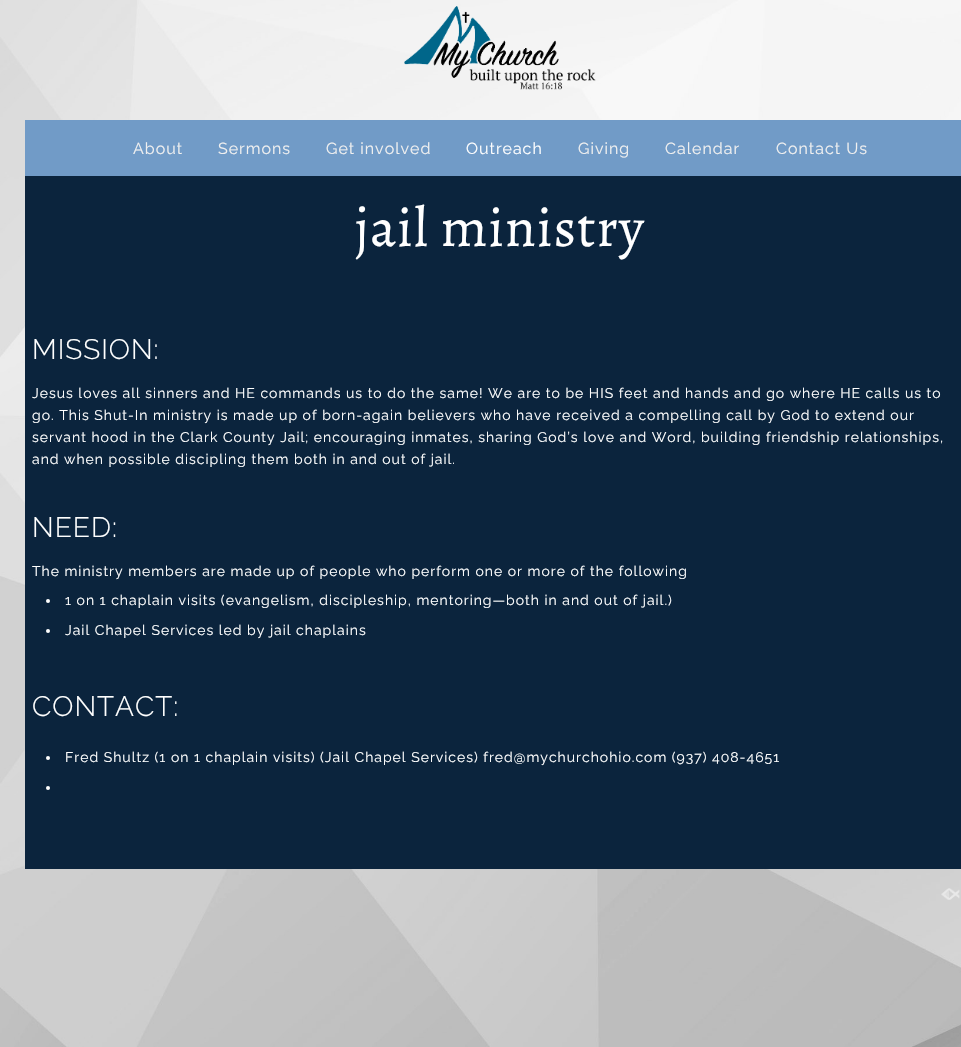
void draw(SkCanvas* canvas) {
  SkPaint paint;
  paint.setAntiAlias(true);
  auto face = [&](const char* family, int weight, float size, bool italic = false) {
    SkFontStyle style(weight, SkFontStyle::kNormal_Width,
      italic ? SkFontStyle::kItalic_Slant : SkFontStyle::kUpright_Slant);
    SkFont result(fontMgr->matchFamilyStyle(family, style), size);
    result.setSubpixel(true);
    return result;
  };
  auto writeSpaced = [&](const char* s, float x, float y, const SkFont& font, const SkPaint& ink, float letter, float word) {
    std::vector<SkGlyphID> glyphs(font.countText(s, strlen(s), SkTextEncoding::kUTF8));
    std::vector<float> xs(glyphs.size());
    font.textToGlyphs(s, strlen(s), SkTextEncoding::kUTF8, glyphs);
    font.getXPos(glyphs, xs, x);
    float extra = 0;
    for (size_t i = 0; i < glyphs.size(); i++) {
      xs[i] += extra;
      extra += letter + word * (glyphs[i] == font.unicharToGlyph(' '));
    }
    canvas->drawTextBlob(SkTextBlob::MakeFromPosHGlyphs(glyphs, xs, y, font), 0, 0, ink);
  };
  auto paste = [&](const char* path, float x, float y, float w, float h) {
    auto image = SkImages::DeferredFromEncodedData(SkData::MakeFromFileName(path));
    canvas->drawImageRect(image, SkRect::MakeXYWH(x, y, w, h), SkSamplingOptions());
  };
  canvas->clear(0xffffffff);
  paste("img/1.png", 0, 0, 961, 1047);
  paste("img/2.png", 404, 6, 192, 84);
  paint.setColor(0xff719bc7);
  canvas->drawRect(SkRect::MakeXYWH(25, 120, 936, 56), paint);
  paint.setColor(0xff0b243d);
  canvas->drawRect(SkRect::MakeXYWH(25, 176, 936, 693), paint);
  paint.setColor(0xffffffff);
  canvas->drawCircle(48, 601, 2, paint);
  canvas->drawCircle(48, 631, 2, paint);
  canvas->drawCircle(48, 758, 2, paint);
  canvas->drawCircle(48, 788, 2, paint);
  paste("img/3.png", 941, 888, 19, 12);
  auto f0 = face("Raleway", 400, 16);
  paint.setColor(0xfff0f0f0);
  {
    const struct { const char* s; float x, y; } items[] = {
      {"About", 133, 154},
      {"Sermons", 218, 154},
      {"Get involved", 326, 154},
    };
    for (auto [s, x, y] : items) {
      writeSpaced(s, x, y, f0, paint, 1, 0);
    }
  }
  paint.setColor(0xffffffff);
  writeSpaced("Outreach", 466, 154, f0, paint, 1, 0);
  paint.setColor(0xfff0f0f0);
  {
    const struct { const char* s; float x, y; } items[] = {
      {"Giving", 578, 154},
      {"Calendar", 665, 154},
      {"Contact Us", 776, 154},
    };
    for (auto [s, x, y] : items) {
      writeSpaced(s, x, y, f0, paint, 1, 0);
    }
  }
  auto f1 = face("Alegreya", 400, 56);
  paint.setColor(0xffffffff);
  writeSpaced("jail ministry", 355, 246, f1, paint, 1, 0);
  auto f2 = face("Raleway", 300, 28);
  writeSpaced("MISSION:", 32, 359, f2, paint, 1, 0);
  auto f3 = face("Raleway", 400, 14);
  {
    const struct { const char* s; float x, y; } items[] = {
      {"Jesus loves all sinners and HE commands us to do the same! We are to be HIS feet and hands and go where HE calls us to", 32, 398},
      {"go. This Shut-In ministry is made up of born-again believers who have received a compelling call by God to extend our", 32, 420},
      {"servant hood in the Clark County Jail; encouraging inmates, sharing God’s love and Word, building friendship relationships,", 32, 442},
      {"and when possible discipling them both in and out of jail.", 32, 464},
    };
    for (auto [s, x, y] : items) {
      writeSpaced(s, x, y, f3, paint, 1, 0);
    }
  }
  writeSpaced("NEED:", 32, 537, f2, paint, 1, 0);
  {
    const struct { const char* s; float x, y; } items[] = {
      {"The ministry members are made up of people who perform one or more of the following", 32, 576},
      {"1 on 1 chaplain visits (evangelism, discipleship, mentoring—both in and out of jail.)", 65, 605},
      {"Jail Chapel Services led by jail chaplains", 65, 635},
    };
    for (auto [s, x, y] : items) {
      writeSpaced(s, x, y, f3, paint, 1, 0);
    }
  }
  writeSpaced("CONTACT:", 32, 716, f2, paint, 1, 0);
  writeSpaced("Fred Shultz (1 on 1 chaplain visits) (Jail Chapel Services) fred@mychurchohio.com (937) 408-4651", 65, 762, f3, paint, 1, 0);
}
